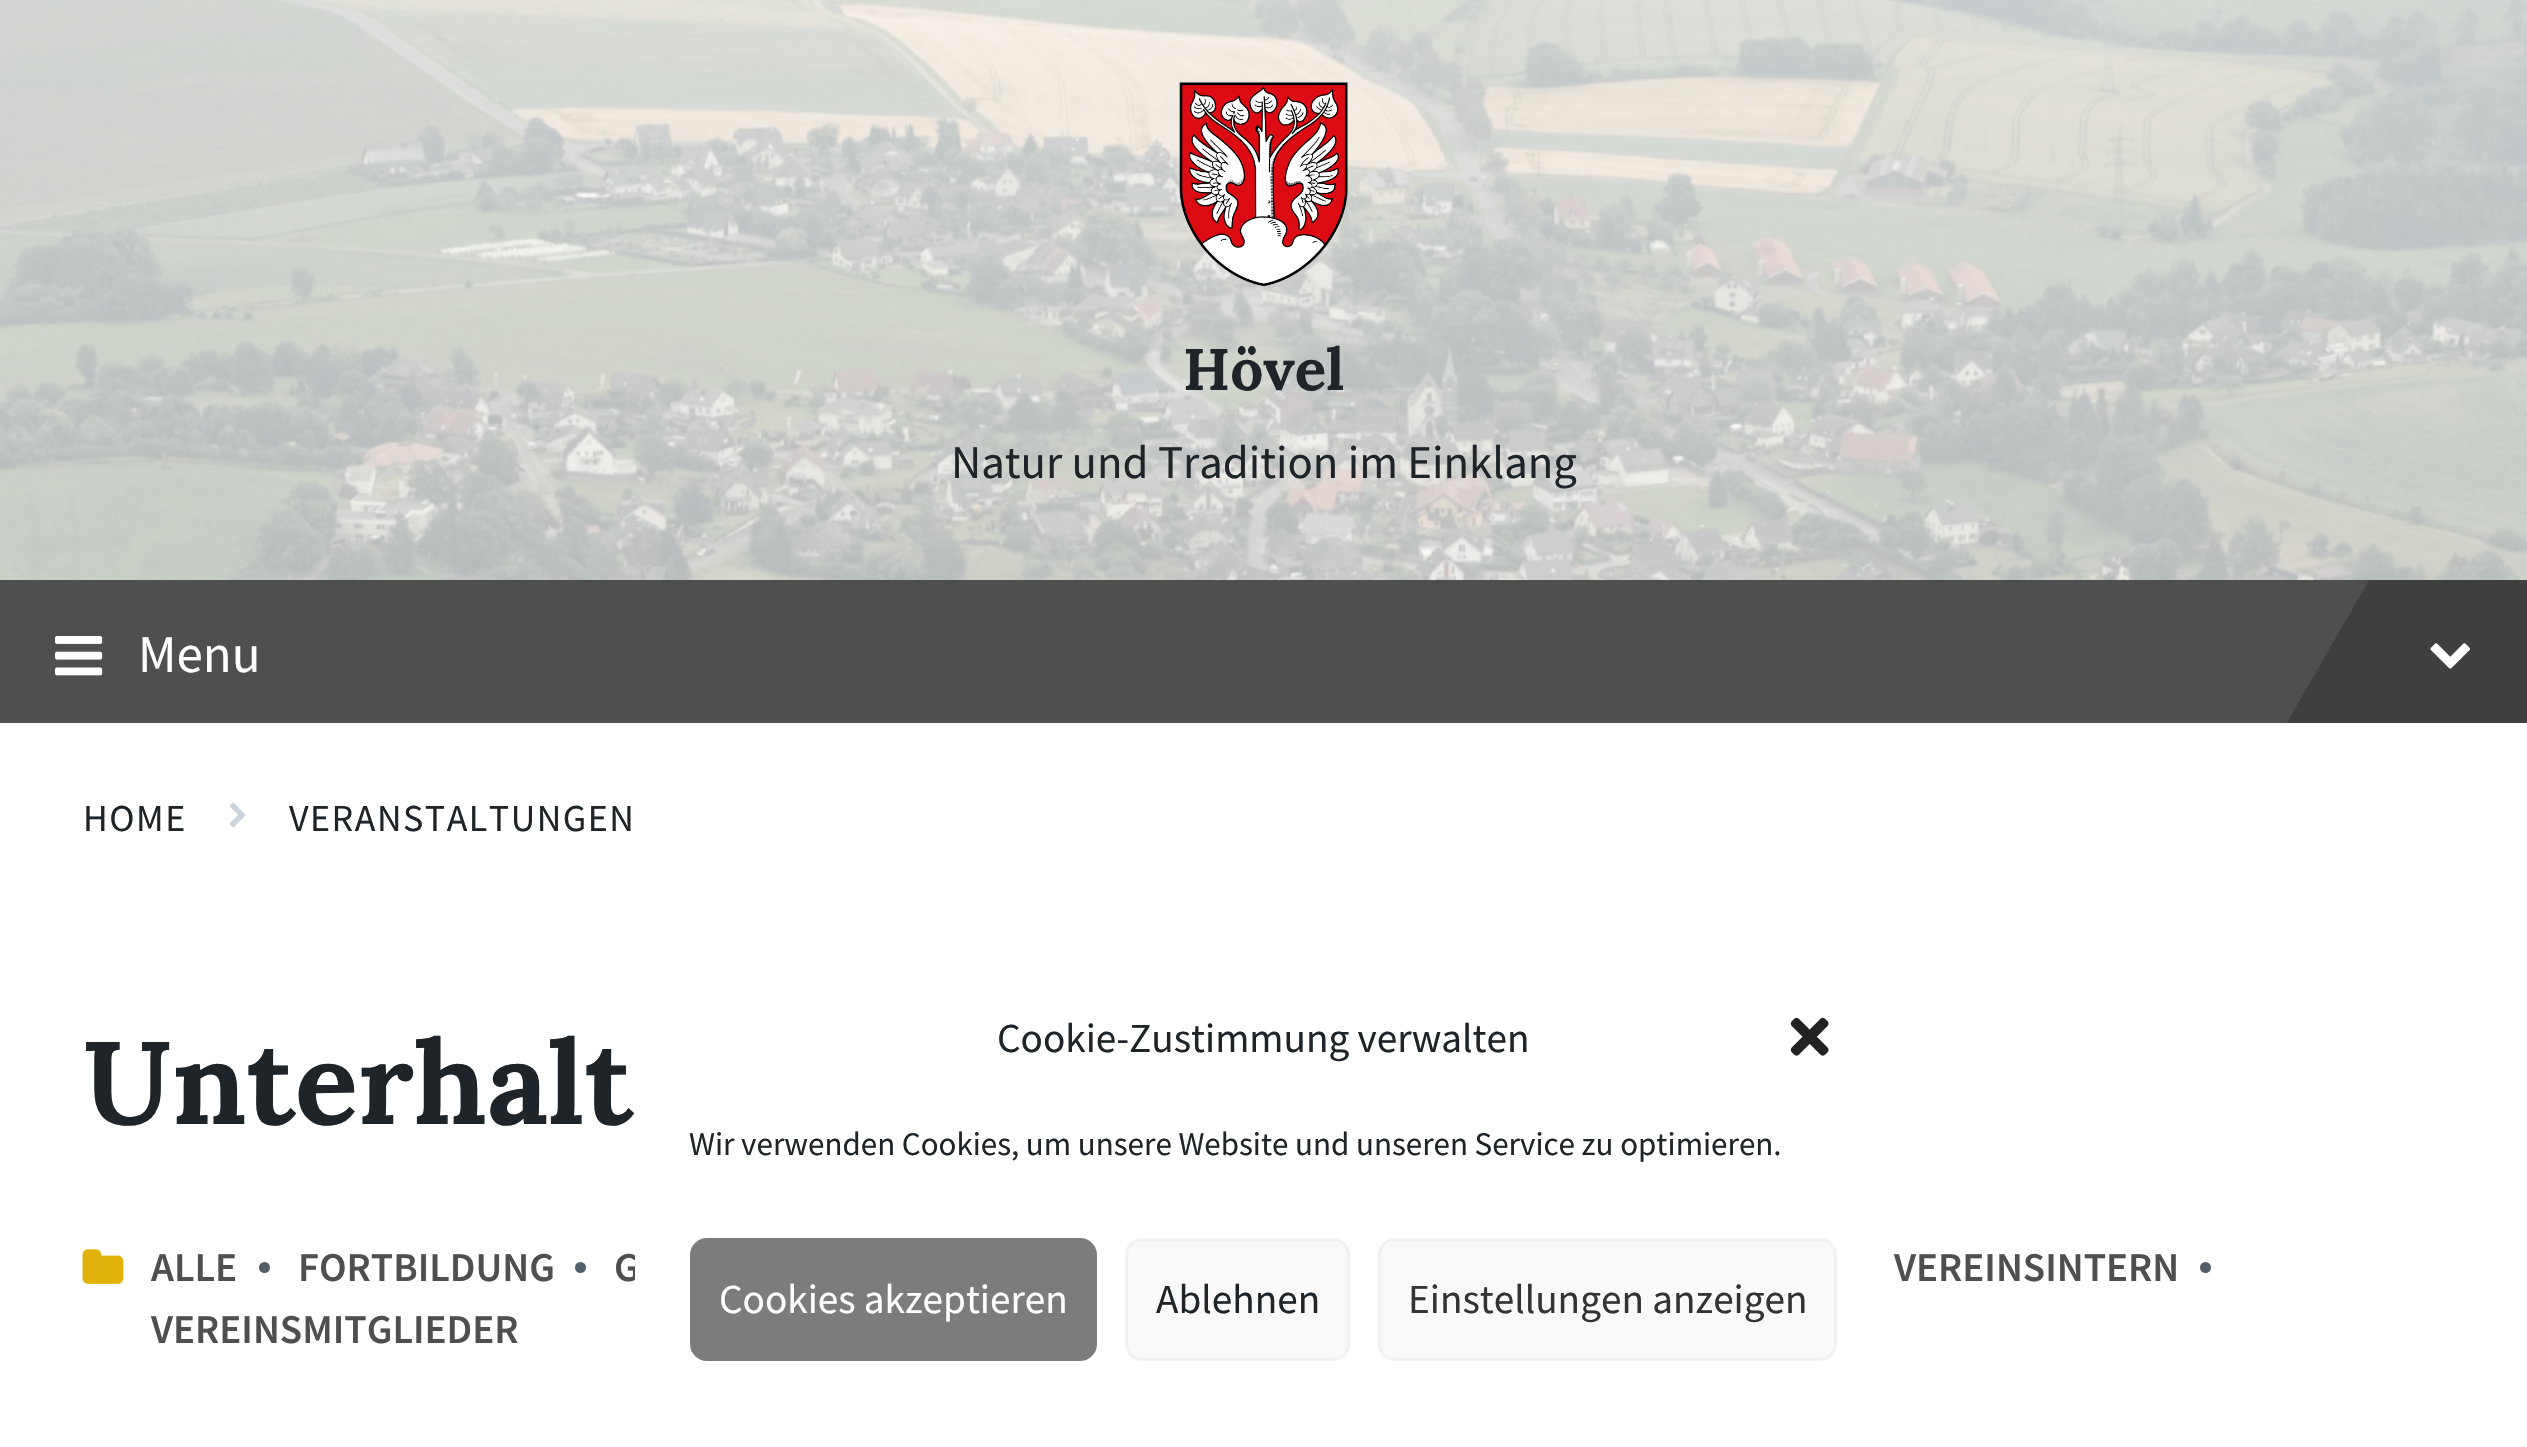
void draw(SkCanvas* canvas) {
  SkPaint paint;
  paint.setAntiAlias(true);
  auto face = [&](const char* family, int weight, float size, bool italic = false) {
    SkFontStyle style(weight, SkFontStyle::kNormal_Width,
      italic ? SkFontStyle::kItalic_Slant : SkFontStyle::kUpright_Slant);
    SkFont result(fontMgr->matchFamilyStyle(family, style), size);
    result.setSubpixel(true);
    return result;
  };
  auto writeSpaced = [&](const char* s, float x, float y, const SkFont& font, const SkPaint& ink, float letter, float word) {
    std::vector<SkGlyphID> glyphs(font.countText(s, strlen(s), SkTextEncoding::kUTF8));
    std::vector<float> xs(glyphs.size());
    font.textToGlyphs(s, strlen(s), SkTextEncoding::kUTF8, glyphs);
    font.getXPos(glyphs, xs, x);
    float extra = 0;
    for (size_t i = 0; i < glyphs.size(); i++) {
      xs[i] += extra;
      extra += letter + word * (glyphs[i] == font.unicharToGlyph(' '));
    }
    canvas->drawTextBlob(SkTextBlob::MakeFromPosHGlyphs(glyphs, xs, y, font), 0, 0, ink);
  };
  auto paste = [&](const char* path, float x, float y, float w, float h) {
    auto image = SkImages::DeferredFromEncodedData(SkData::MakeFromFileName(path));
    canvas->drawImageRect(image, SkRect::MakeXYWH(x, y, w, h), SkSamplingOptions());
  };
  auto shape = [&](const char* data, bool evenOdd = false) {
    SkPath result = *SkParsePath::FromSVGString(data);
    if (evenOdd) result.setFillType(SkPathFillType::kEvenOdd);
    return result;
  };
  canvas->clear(0xffffffff);
  paint.setColor(0xff4f4f4f);
  canvas->drawRect(SkRect::MakeXYWH(0, 580, 2527, 143), paint);
  paste("img/1.png", 0, 0, 2527, 581);
  paste("img/2.png", 1179, 82, 169, 204);
  paste("img/3.png", 55, 636, 48, 40);
  canvas->save();
  canvas->clipRect(SkRect::MakeXYWH(0, 580, 2527, 143));
  paint.setColor(0x33000000);
  canvas->drawPath(shape("M2421 490L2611 600L2469 848L2278 738Z"), paint);
  canvas->restore();
  paste("img/4.png", 2430, 643, 40, 26);
  paste("img/5.png", 229, 802, 17, 26);
  paste("img/6.png", 82, 1249, 42, 35);
  paint.setColor(0xff545e69);
  canvas->drawCircle(264.5f, 1267.5f, 5.5f, paint);
  canvas->drawCircle(580.5f, 1267.5f, 5.5f, paint);
  canvas->drawCircle(2205.5f, 1267.5f, 5.5f, paint);
  auto f0 = face("Lora", 700, 58.5f);
  paint.setColor(0xff1e2427);
  canvas->drawString("Hövel", 1183, 390, f0, paint);
  auto f1 = face("Source Sans Pro", 400, 46.75f);
  canvas->drawString("Natur und Tradition im Einklang", 951, 478, f1, paint);
  auto f2 = face("Source Sans Pro", 400, 53);
  paint.setColor(0xffffffff);
  canvas->drawString("Menu", 138, 672, f2, paint);
  auto f3 = face("Source Sans Pro", 400, 38);
  paint.setColor(0xff1e2427);
  writeSpaced("HOME", 83, 831, f3, paint, 1.5f, 0);
  writeSpaced("VERANSTALTUNGEN", 289, 831, f3, paint, 1.5f, 0);
  auto f4 = face("Lora", 700, 117);
  canvas->drawString("Unterhalt", 83, 1124, f4, paint);
  auto f5 = face("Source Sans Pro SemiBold", 600, 41);
  paint.setColor(0xff4f4f4f);
  {
    const struct { const char* s; float x, y; } items[] = {
      {"ALLE", 151, 1281},
      {"FORTBILDUNG", 298, 1281},
      {"G", 614, 1281},
      {"VEREINSINTERN", 1894, 1281},
      {"VEREINSMITGLIEDER", 151, 1343},
    };
    for (auto [s, x, y] : items) {
      canvas->drawString(s, x, y, f5, paint);
    }
  }
  paint.setColor(0xffffffff);
  canvas->drawRoundRect(SkRect::MakeXYWH(635, 968, 1257, 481), 33, 33, paint);
  auto f6 = face("Source Sans Pro", 400, 41.25f);
  paint.setColor(0xff1e2427);
  canvas->drawString("Cookie-Zustimmung verwalten", 997, 1052, f6, paint);
  paste("img/7.png", 1790, 1017, 39, 39);
  auto f7 = face("Source Sans Pro", 400, 33);
  canvas->drawString("Wir verwenden Cookies, um unsere Website und unseren Service zu optimieren.", 689, 1155, f7, paint);
  paint.setColor(0xff7c7c7c);
  canvas->drawRoundRect(SkRect::MakeXYWH(691.5f, 1239.5f, 404, 120), 15.5f, 15.5f, paint);
  paint.setStroke(true);
  paint.setStrokeWidth(3);
  canvas->drawRoundRect(SkRect::MakeXYWH(691.5f, 1239.5f, 404, 120), 15.5f, 15.5f, paint);
  paint.setStroke(false);
  paint.setColor(0xffffffff);
  canvas->drawString("Cookies akzeptieren", 719, 1313, f6, paint);
  paint.setColor(0xfff9f9f9);
  canvas->drawRoundRect(SkRect::MakeXYWH(1126.5f, 1239.5f, 222, 120), 15.5f, 15.5f, paint);
  paint.setStroke(true);
  paint.setColor(0xfff2f2f2);
  canvas->drawRoundRect(SkRect::MakeXYWH(1126.5f, 1239.5f, 222, 120), 15.5f, 15.5f, paint);
  paint.setStroke(false);
  paint.setColor(0xff1e2427);
  canvas->drawString("Ablehnen", 1156, 1313, f6, paint);
  paint.setColor(0xfff9f9f9);
  canvas->drawRoundRect(SkRect::MakeXYWH(1379.5f, 1239.5f, 456, 120), 15.5f, 15.5f, paint);
  paint.setStroke(true);
  paint.setColor(0xfff2f2f2);
  canvas->drawRoundRect(SkRect::MakeXYWH(1379.5f, 1239.5f, 456, 120), 15.5f, 15.5f, paint);
  paint.setStroke(false);
  paint.setColor(0xff333333);
  canvas->drawString("Einstellungen anzeigen", 1408, 1313, f6, paint);
}
